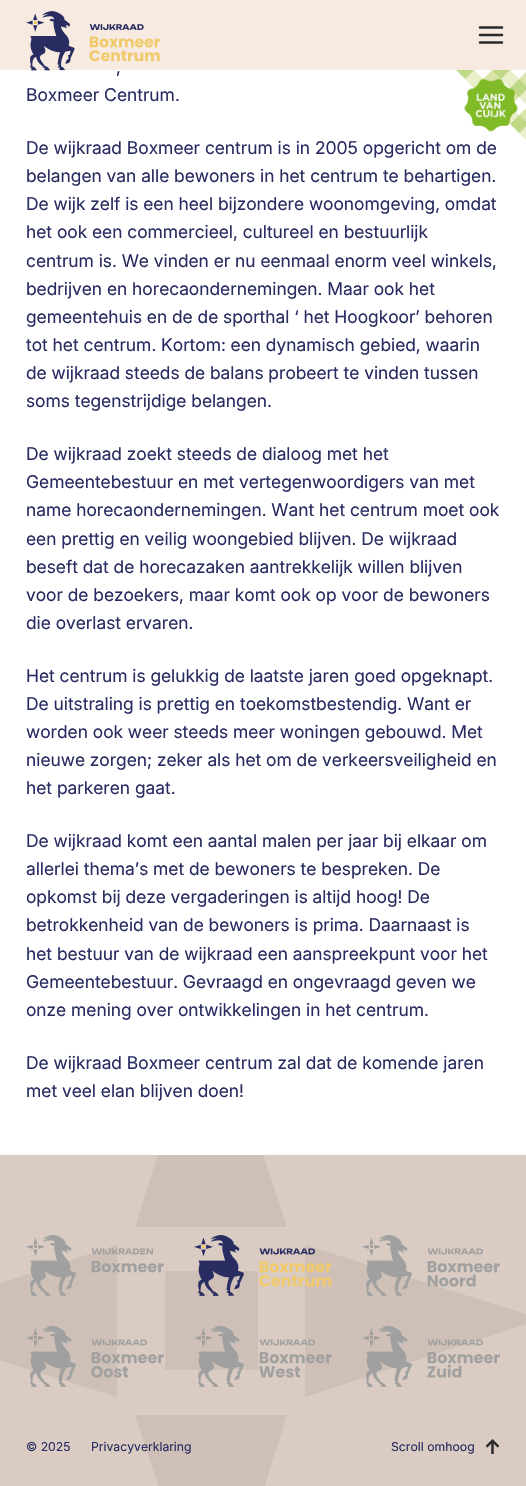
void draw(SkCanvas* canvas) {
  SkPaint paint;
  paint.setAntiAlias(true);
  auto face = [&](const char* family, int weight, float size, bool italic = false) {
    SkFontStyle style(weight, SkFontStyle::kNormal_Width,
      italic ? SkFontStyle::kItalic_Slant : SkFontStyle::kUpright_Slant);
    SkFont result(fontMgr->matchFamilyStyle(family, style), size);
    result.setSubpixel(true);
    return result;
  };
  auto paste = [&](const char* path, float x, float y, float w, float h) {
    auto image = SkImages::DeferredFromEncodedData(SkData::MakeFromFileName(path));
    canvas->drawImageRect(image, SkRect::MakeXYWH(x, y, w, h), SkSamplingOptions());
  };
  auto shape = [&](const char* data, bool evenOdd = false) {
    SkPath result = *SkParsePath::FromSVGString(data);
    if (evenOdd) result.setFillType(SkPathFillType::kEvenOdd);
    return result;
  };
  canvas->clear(0xffffffff);
  paint.setColor(0xfff7eae1);
  canvas->drawRect(SkRect::MakeXYWH(0, 0, 526, 70), paint);
  paste("img/1.png", 26, 11, 134, 60);
  paint.setStroke(true);
  paint.setStrokeWidth(2.5f);
  paint.setStrokeCap(SkPaint::kRound_Cap);
  paint.setStrokeJoin(SkPaint::kRound_Join);
  paint.setColor(0xff2b2b2b);
  canvas->drawPath(shape("M480 35H502M480 27.5H502M480 42.5H502"), paint);
  paste("img/2.png", 456, 70, 70, 70);
  paint.setStroke(false);
  paint.setColor(0xffdaccc2);
  canvas->drawRect(SkRect::MakeXYWH(0, 1155, 526, 331), paint);
  paint.setColor(0xffcec0b6);
  canvas->drawPath(shape("M213 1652L287 1415H135L213 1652"), paint);
  canvas->save();
  canvas->clipRect(SkRect::MakeXYWH(0, 1155, 526, 331));
  canvas->drawPath(shape("M287 1227L209 990L135 1227H287"), paint);
  canvas->restore();
  canvas->drawPath(shape("M117 1397V1245L-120 1323L117 1397"), paint);
  canvas->drawPath(shape("M305 1245V1397L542 1319L305 1245"), paint);
  canvas->drawRect(SkRect::MakeXYWH(165, 1271, 93, 99), paint);
  paste("img/3.png", 26, 1235, 138, 61);
  paste("img/4.png", 194, 1235, 138, 61);
  paste("img/5.png", 362, 1235, 138, 61);
  paste("img/6.png", 26, 1326, 138, 61);
  paste("img/7.png", 194, 1326, 138, 61);
  paste("img/8.png", 362, 1326, 138, 61);
  paste("img/9.png", 485, 1439, 15, 15);
  auto f0 = face("Inter", 400, 17.6f);
  paint.setColor(0xff282c61);
  {
    const struct { const char* s; float x, y; } items[] = {
      {",", 116, 73},
      {"Boxmeer Centrum.", 26, 101},
      {"De wijkraad Boxmeer centrum is in 2005 opgericht om de", 26, 154},
      {"belangen van alle bewoners in het centrum te behartigen.", 26, 182},
      {"De wijk zelf is een heel bijzondere woonomgeving, omdat", 26, 210},
      {"het ook een commercieel, cultureel en bestuurlijk", 26, 238},
      {"centrum is. We vinden er nu eenmaal enorm veel winkels,", 26, 267},
      {"bedrijven en horecaondernemingen. Maar ook het", 26, 295},
      {"gemeentehuis en de de sporthal ‘ het Hoogkoor’ behoren", 26, 323},
      {"tot het centrum. Kortom: een dynamisch gebied, waarin", 26, 351},
      {"de wijkraad steeds de balans probeert te vinden tussen", 26, 379},
      {"soms tegenstrijdige belangen.", 26, 407},
      {"De wijkraad zoekt steeds de dialoog met het", 26, 460},
      {"Gemeentebestuur en met vertegenwoordigers van met", 26, 488},
      {"name horecaondernemingen. Want het centrum moet ook", 26, 516},
      {"een prettig en veilig woongebied blijven. De wijkraad", 26, 545},
      {"beseft dat de horecazaken aantrekkelijk willen blijven", 26, 573},
      {"voor de bezoekers, maar komt ook op voor de bewoners", 26, 601},
      {"die overlast ervaren.", 26, 629},
      {"Het centrum is gelukkig de laatste jaren goed opgeknapt.", 26, 682},
      {"De uitstraling is prettig en toekomstbestendig. Want er", 26, 710},
      {"worden ook weer steeds meer woningen gebouwd. Met", 26, 738},
      {"nieuwe zorgen; zeker als het om de verkeersveiligheid en", 26, 766},
      {"het parkeren gaat.", 26, 794},
      {"De wijkraad komt een aantal malen per jaar bij elkaar om", 26, 847},
      {"allerlei thema’s met de bewoners te bespreken. De", 26, 875},
      {"opkomst bij deze vergaderingen is altijd hoog! De", 26, 903},
      {"betrokkenheid van de bewoners is prima. Daarnaast is", 26, 931},
      {"het bestuur van de wijkraad een aanspreekpunt voor het", 26, 960},
      {"Gemeentebestuur. Gevraagd en ongevraagd geven we", 26, 988},
      {"onze mening over ontwikkelingen in het centrum.", 26, 1016},
      {"De wijkraad Boxmeer centrum zal dat de komende jaren", 26, 1069},
      {"met veel elan blijven doen!", 26, 1097},
    };
    for (auto [s, x, y] : items) {
      canvas->drawString(s, x, y, f0, paint);
    }
  }
  auto f1 = face("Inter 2", 400, 12.25f);
  {
    const struct { const char* s; float x, y; } items[] = {
      {"© 2025", 26, 1451},
      {"Privacyverklaring", 91, 1451},
      {"Scroll omhoog", 391, 1451},
    };
    for (auto [s, x, y] : items) {
      canvas->drawString(s, x, y, f1, paint);
    }
  }
}
